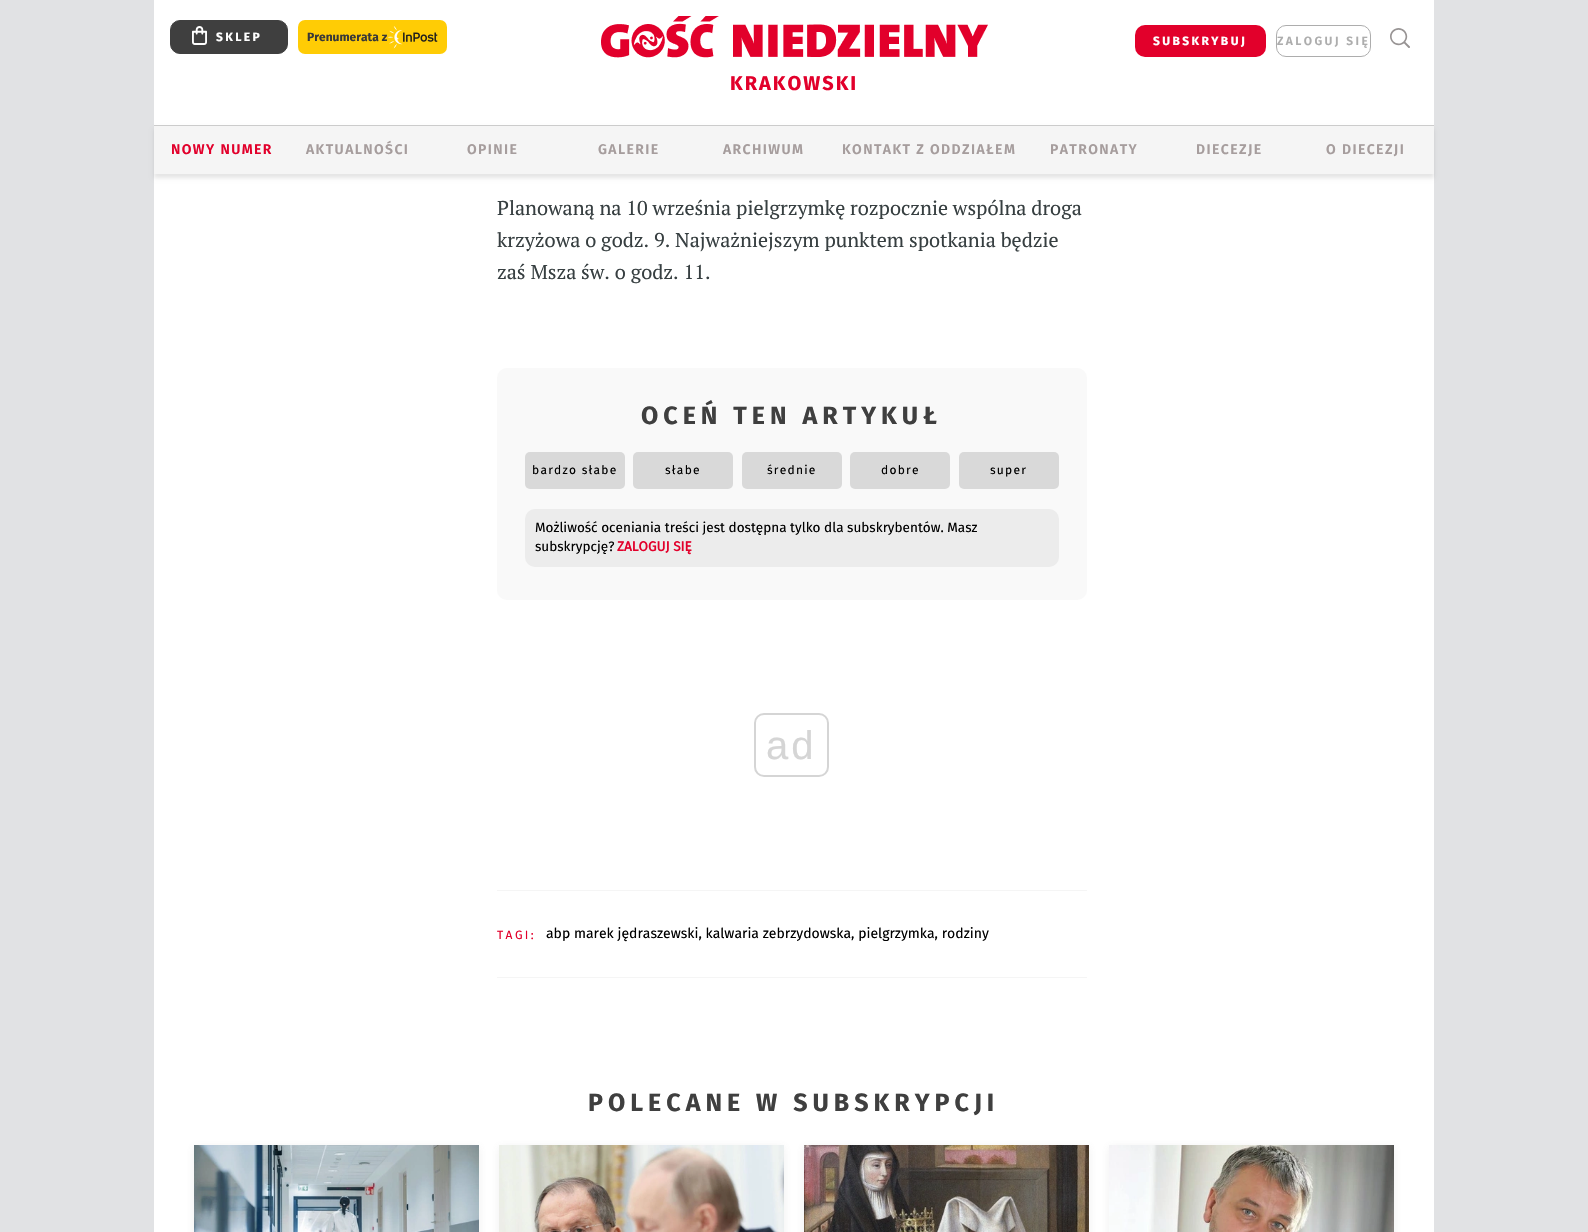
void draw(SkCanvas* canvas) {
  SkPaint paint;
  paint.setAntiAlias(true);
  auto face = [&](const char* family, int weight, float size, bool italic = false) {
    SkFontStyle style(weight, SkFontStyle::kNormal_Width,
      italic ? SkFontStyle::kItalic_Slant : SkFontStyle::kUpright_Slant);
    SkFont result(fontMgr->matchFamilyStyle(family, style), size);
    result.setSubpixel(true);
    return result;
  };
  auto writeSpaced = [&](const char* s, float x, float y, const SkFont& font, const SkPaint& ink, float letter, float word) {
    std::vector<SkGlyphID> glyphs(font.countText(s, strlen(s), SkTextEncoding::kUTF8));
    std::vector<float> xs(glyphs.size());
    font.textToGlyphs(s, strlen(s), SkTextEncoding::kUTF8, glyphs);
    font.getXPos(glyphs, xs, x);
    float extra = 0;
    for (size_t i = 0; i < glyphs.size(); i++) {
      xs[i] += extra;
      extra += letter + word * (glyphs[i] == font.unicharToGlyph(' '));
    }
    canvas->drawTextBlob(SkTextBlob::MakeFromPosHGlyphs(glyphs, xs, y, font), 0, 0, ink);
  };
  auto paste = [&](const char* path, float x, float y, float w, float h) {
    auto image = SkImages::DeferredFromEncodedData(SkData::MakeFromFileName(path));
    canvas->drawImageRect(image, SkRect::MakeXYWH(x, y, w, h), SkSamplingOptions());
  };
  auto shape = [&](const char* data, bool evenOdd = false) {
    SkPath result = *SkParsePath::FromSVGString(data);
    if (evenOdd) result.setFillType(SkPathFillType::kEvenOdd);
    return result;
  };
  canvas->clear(0xffe1e2e4);
  paint.setColor(0xfff5f5f5);
  canvas->drawRect(SkRect::MakeXYWH(154, 126, 1280, 48), paint);
  paint.setColor(0xffffffff);
  canvas->drawRect(SkRect::MakeXYWH(154, 0, 1280, 125), paint);
  paint.setColor(0xff3f3f3f);
  canvas->drawRoundRect(SkRect::MakeXYWH(170.5f, 20.5f, 117, 33), 9.5f, 9.5f, paint);
  paint.setStroke(true);
  paint.setStrokeWidth(1);
  canvas->drawRoundRect(SkRect::MakeXYWH(170.5f, 20.5f, 117, 33), 9.5f, 9.5f, paint);
  paste("img/1.png", 192, 26, 15, 19);
  paint.setStroke(false);
  paint.setColor(0xffffcc05);
  canvas->drawRoundRect(SkRect::MakeXYWH(298, 20, 149, 34), 7, 7, paint);
  paste("img/2.png", 388, 26, 50, 23);
  paint.setColor(0xffe2002b);
  canvas->drawRoundRect(SkRect::MakeXYWH(1135, 25, 131, 32), 10, 10, paint);
  paint.setStroke(true);
  paint.setColor(0xffadadad);
  canvas->drawRoundRect(SkRect::MakeXYWH(1276.5f, 25.5f, 94, 31), 9.5f, 9.5f, paint);
  paste("img/3.png", 1390, 28, 20, 20);
  paste("img/4.png", 601, 16, 387, 42);
  paint.setStroke(false);
  paint.setColor(0xffffffff);
  canvas->drawRect(SkRect::MakeXYWH(154, 174, 1280, 1058), paint);
  canvas->save();
  canvas->clipPath(shape("M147 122H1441V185H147ZM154 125H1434V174H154Z", true), true);
  paint.setColor(0x1a000000);
  paint.setMaskFilter(SkMaskFilter::MakeBlur(kNormal_SkBlurStyle, 2));
  canvas->drawRect(SkRect::MakeXYWH(154, 129, 1280, 49), paint);
  paint.setMaskFilter(nullptr);
  canvas->restore();
  paint.setColor(0xffcccccc);
  canvas->drawRect(SkRect::MakeXYWH(154, 125, 1280, 1), paint);
  paint.setColor(0xfff9f9f9);
  canvas->drawRoundRect(SkRect::MakeXYWH(497, 368, 590, 232), 10, 10, paint);
  paint.setColor(0xffd9d9d9);
  canvas->drawRoundRect(SkRect::MakeXYWH(525, 452, 100, 37), 5, 5, paint);
  canvas->drawRoundRect(SkRect::MakeXYWH(633, 452, 100, 37), 5, 5, paint);
  canvas->drawRoundRect(SkRect::MakeXYWH(742, 452, 100, 37), 5, 5, paint);
  canvas->drawRoundRect(SkRect::MakeXYWH(850, 452, 100, 37), 5, 5, paint);
  canvas->drawRoundRect(SkRect::MakeXYWH(959, 452, 100, 37), 5, 5, paint);
  paint.setColor(0xffececec);
  canvas->drawRoundRect(SkRect::MakeXYWH(525, 509, 534, 58), 10, 10, paint);
  paint.setStroke(true);
  paint.setStrokeWidth(2);
  paint.setColor(0xffd5d5d5);
  canvas->drawRoundRect(SkRect::MakeXYWH(755, 714, 73, 62), 9, 9, paint);
  paint.setStroke(false);
  paint.setColor(0xfff5f5f5);
  canvas->drawRect(SkRect::MakeXYWH(497, 890, 590, 1), paint);
  canvas->drawRect(SkRect::MakeXYWH(497, 977, 590, 1), paint);
  paint.setColor(0x1a636363);
  paint.setMaskFilter(SkMaskFilter::MakeBlur(kNormal_SkBlurStyle, 4));
  canvas->drawRect(SkRect::MakeXYWH(194, 1147, 285, 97), paint);
  paint.setMaskFilter(nullptr);
  paste("img/5.png", 194, 1145, 285, 87);
  paint.setMaskFilter(SkMaskFilter::MakeBlur(kNormal_SkBlurStyle, 4));
  canvas->drawRect(SkRect::MakeXYWH(499, 1147, 285, 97), paint);
  paint.setMaskFilter(nullptr);
  paste("img/6.png", 499, 1145, 285, 87);
  paint.setMaskFilter(SkMaskFilter::MakeBlur(kNormal_SkBlurStyle, 4));
  canvas->drawRect(SkRect::MakeXYWH(804, 1147, 285, 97), paint);
  paint.setMaskFilter(nullptr);
  paste("img/7.png", 804, 1145, 285, 87);
  paint.setMaskFilter(SkMaskFilter::MakeBlur(kNormal_SkBlurStyle, 4));
  canvas->drawRect(SkRect::MakeXYWH(1109, 1147, 285, 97), paint);
  paint.setMaskFilter(nullptr);
  paste("img/8.png", 1109, 1145, 285, 87);
  auto f0 = face("Fira Sans", 700, 12);
  paint.setColor(0xffffffff);
  writeSpaced("SKLEP", 216, 41, f0, paint, 2.4f, 0);
  auto f1 = face("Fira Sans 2", 700, 12);
  paint.setColor(0xff383838);
  canvas->drawString("Prenumerata z", 307, 41, f1, paint);
  paint.setColor(0xffffffff);
  writeSpaced("SUBSKRYBUJ", 1153, 45, f0, paint, 2.4f, 0);
  auto f2 = face("Fira Sans", 600, 12);
  paint.setColor(0xffadadad);
  writeSpaced("ZALOGUJ SIĘ", 1277, 45, f2, paint, 2.4f, 0);
  auto f3 = face("Fira Sans", 700, 20);
  paint.setColor(0xffe2002b);
  writeSpaced("KRAKOWSKI", 730, 90, f3, paint, 2, 0);
  auto f4 = face("Fira Sans", 600, 14);
  writeSpaced("NOWY NUMER", 171, 154, f4, paint, 1.4f, 0);
  paint.setColor(0xffa69d9d);
  {
    const struct { const char* s; float x, y; } items[] = {
      {"AKTUALNOŚCI", 306, 154},
      {"OPINIE", 467, 154},
      {"GALERIE", 598, 154},
      {"ARCHIWUM", 723, 154},
      {"KONTAKT Z ODDZIAŁEM", 842, 154},
      {"PATRONATY", 1050, 154},
      {"DIECEZJE", 1196, 154},
      {"O DIECEZJI", 1326, 154},
    };
    for (auto [s, x, y] : items) {
      writeSpaced(s, x, y, f4, paint, 1.4f, 0);
    }
  }
  auto f5 = face("PT Serif", 400, 20);
  paint.setColor(0xff373f41);
  {
    const struct { const char* s; float x, y; } items[] = {
      {"Planowaną na 10 września pielgrzymkę rozpocznie wspólna droga", 497, 215},
      {"krzyżowa o godz. 9. Najważniejszym punktem spotkania będzie", 497, 247},
      {"zaś Msza św. o godz. 11.", 497, 279},
    };
    for (auto [s, x, y] : items) {
      canvas->drawString(s, x, y, f5, paint);
    }
  }
  auto f6 = face("Fira Sans 2", 700, 25);
  paint.setColor(0xff3f3f3f);
  writeSpaced("OCEŃ TEN ARTYKUŁ", 641, 424, f6, paint, 5, 0);
  auto f7 = face("Fira Sans", 400, 12);
  paint.setColor(0xff000000);
  {
    const struct { const char* s; float x, y; } items[] = {
      {"bardzo słabe", 532, 474},
      {"słabe", 665, 474},
      {"średnie", 767, 474},
      {"dobre", 881, 474},
      {"super", 990, 474},
    };
    for (auto [s, x, y] : items) {
      writeSpaced(s, x, y, f7, paint, 1.25f, 0);
    }
  }
  auto f8 = face("Fira Sans", 400, 13.55f);
  canvas->drawString("Możliwość oceniania treści jest dostępna tylko dla subskrybentów. Masz", 535, 532, f8, paint);
  canvas->drawString("subskrypcję?", 535, 551, f8, paint);
  auto f9 = face("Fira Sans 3", 700, 13.55f);
  paint.setColor(0xffe2002b);
  canvas->drawString("ZALOGUJ SIĘ", 617, 551, f9, paint);
  auto f10 = face("Liberation Sans", 400, 40);
  paint.setColor(0xffd5d5d5);
  writeSpaced("ad", 766, 759, f10, paint, 3, 0);
  auto f11 = face("Fira Sans 2", 400, 12);
  paint.setColor(0xffe2002b);
  writeSpaced("TAGI:", 497, 939, f11, paint, 2.4f, 0);
  auto f12 = face("Fira Sans", 400, 14);
  paint.setColor(0xff000000);
  canvas->drawString("abp marek jędraszewski, kalwaria zebrzydowska, pielgrzymka, rodziny", 546, 938, f12, paint);
  auto f13 = face("Fira Sans", 700, 25);
  paint.setColor(0xff3f3f3f);
  writeSpaced("POLECANE W SUBSKRYPCJI", 588, 1111, f13, paint, 5, 0);
}
